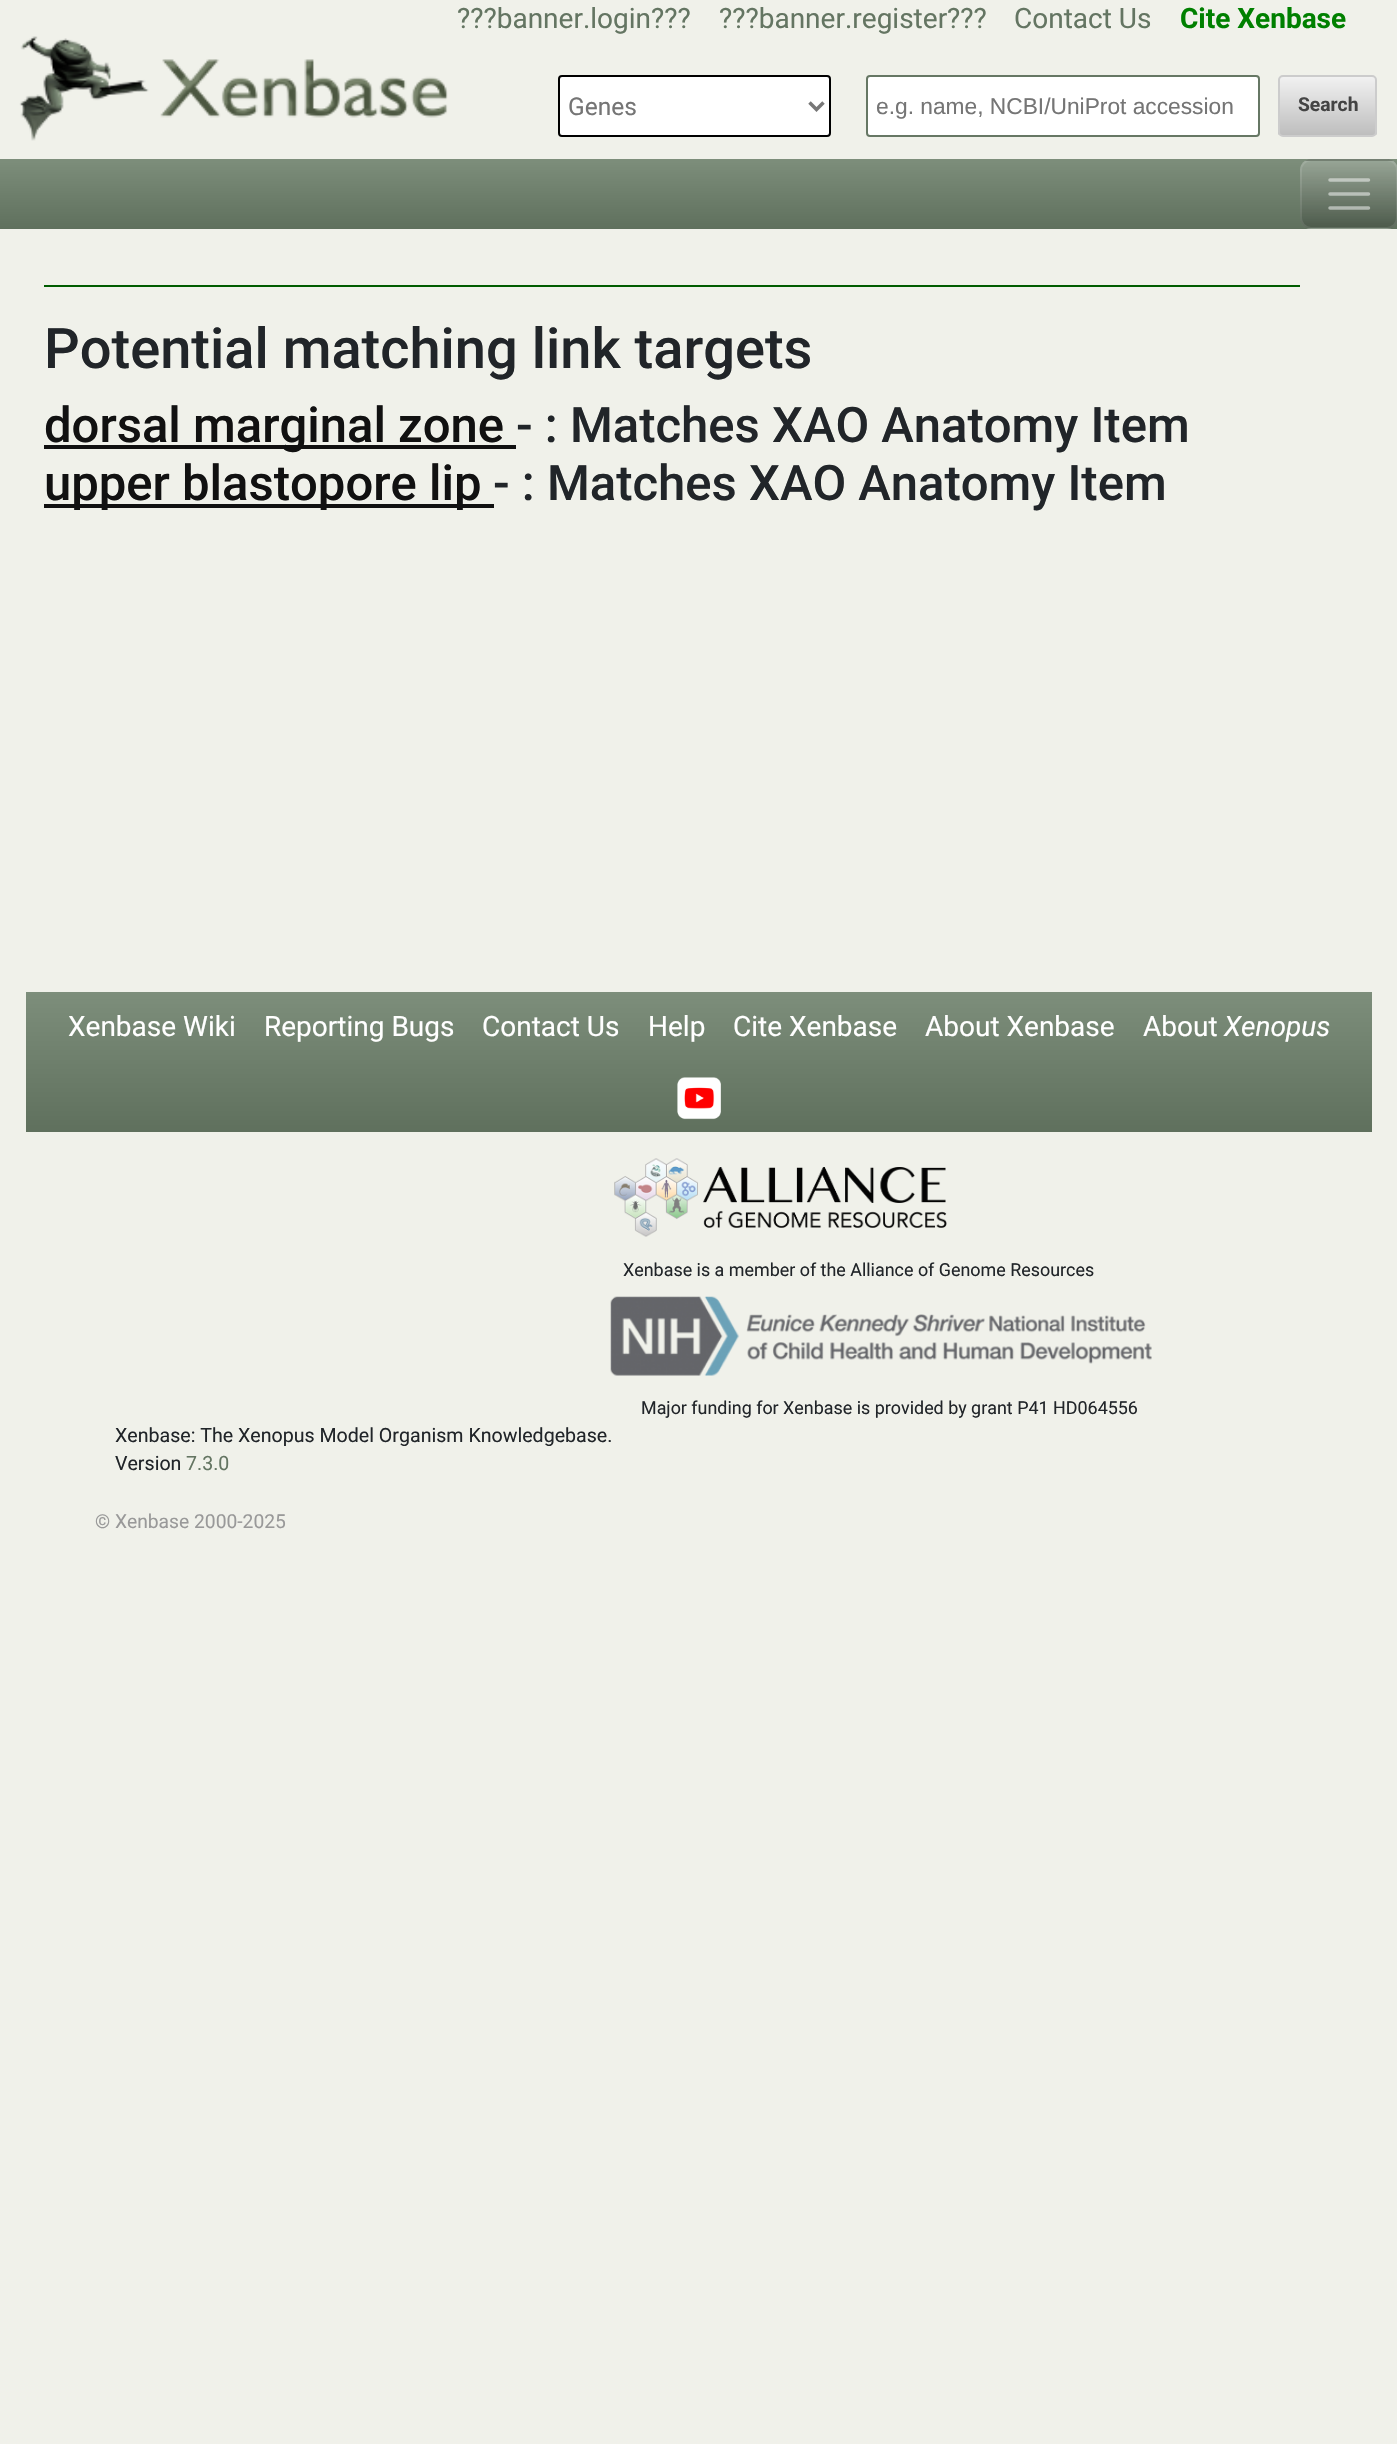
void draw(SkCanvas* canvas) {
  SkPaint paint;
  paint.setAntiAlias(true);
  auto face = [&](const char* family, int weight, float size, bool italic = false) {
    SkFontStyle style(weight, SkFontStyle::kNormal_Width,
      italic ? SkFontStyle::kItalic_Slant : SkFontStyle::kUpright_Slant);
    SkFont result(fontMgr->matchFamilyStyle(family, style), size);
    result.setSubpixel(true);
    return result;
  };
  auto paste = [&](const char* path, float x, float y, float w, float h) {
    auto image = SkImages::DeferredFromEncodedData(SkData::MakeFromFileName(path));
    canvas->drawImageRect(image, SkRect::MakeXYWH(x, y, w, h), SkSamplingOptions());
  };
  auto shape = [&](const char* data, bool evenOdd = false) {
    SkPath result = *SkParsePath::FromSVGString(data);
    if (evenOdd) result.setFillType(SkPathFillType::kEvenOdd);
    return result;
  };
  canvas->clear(0xfff0f1ea);
  paste("img/1.png", 19, 36, 429, 105);
  paint.setColor(0xffffffff);
  canvas->drawRoundRect(SkRect::MakeXYWH(559, 76, 271, 60), 3, 3, paint);
  paint.setStroke(true);
  paint.setStrokeWidth(2);
  paint.setColor(0xff000000);
  canvas->drawRoundRect(SkRect::MakeXYWH(559, 76, 271, 60), 3, 3, paint);
  paint.setStrokeWidth(3.5f);
  paint.setColor(0xff777777);
  canvas->drawPath(shape("M809.5 102.5L816.5 109.5L823.5 102.5"), paint);
  paint.setStroke(false);
  paint.setColor(0xffffffff);
  canvas->drawRoundRect(SkRect::MakeXYWH(867, 76, 392, 60), 3, 3, paint);
  paint.setStroke(true);
  paint.setStrokeWidth(2);
  paint.setColor(0xff667764);
  canvas->drawRoundRect(SkRect::MakeXYWH(867, 76, 392, 60), 3, 3, paint);
  canvas->save();
  canvas->clipPath(shape("M1283 75H1372C1375 75 1377 77 1377 80V132C1377 135 1375 137 1372 137H1283C1280 137 1278 135 1278 132V80C1278 77 1280 75 1283 75Z"), true);
  paint.setStroke(false);
  {
    const SkColor colors[] = {0xfff1f1f1, 0xffbebebe};
    const float stops[] = {0, 1};
    const SkPoint ends[] = {{1327, 77}, {1327, 135}};
    paint.setShader(SkGradientShader::MakeLinear(ends, colors, stops, 2, SkTileMode::kClamp));
    paint.setAlpha(255);
  }
  canvas->drawRect(SkRect::MakeXYWH(1278, 77, 99, 58), paint);
  canvas->restore();
  paint.setStroke(true);
  paint.setShader(nullptr);
  paint.setColor(0xffcccccc);
  canvas->drawRoundRect(SkRect::MakeXYWH(1279, 76, 97, 60), 4, 4, paint);
  paint.setStroke(false);
  {
    const SkColor colors[] = {0xff7d8e7b, 0xff5f705d};
    const float stops[] = {0, 1};
    const SkPoint ends[] = {{699, 159}, {699, 229}};
    paint.setShader(SkGradientShader::MakeLinear(ends, colors, stops, 2, SkTileMode::kClamp));
    paint.setAlpha(255);
  }
  canvas->drawRect(SkRect::MakeXYWH(0, 159, 1397, 70), paint);
  canvas->save();
  canvas->clipPath(shape("M1311 159H1387C1393 159 1398 164 1398 170V218C1398 224 1393 229 1387 229H1311C1305 229 1300 224 1300 218V170C1300 164 1305 159 1311 159Z"), true);
  {
    const SkColor colors[] = {0xff97a495, 0xff647162};
    const float stops[] = {0, 1};
    const SkPoint ends[] = {{1349, 95}, {1349, 161}};
    paint.setShader(SkGradientShader::MakeLinear(ends, colors, stops, 2, SkTileMode::kClamp));
    paint.setAlpha(255);
  }
  canvas->drawRect(SkRect::MakeXYWH(1300, 159, 97, 2), paint);
  {
    const SkColor colors[] = {0x33ffffff, 0x33000000};
    const float stops[] = {0, 1};
    const SkPoint ends[] = {{1349, 161}, {1349, 228}};
    paint.setShader(SkGradientShader::MakeLinear(ends, colors, stops, 2, SkTileMode::kClamp));
    paint.setAlpha(255);
  }
  canvas->drawRect(SkRect::MakeXYWH(1300, 161, 97, 67), paint);
  {
    const SkColor colors[] = {0xff7f8d7d, 0xff4c5a4a};
    const float stops[] = {0, 1};
    const SkPoint ends[] = {{1349, 228}, {1349, 294}};
    paint.setShader(SkGradientShader::MakeLinear(ends, colors, stops, 2, SkTileMode::kClamp));
    paint.setAlpha(255);
  }
  canvas->drawRect(SkRect::MakeXYWH(1300, 228, 97, 1), paint);
  canvas->restore();
  paint.setStroke(true);
  paint.setShader(nullptr);
  paint.setColor(0x1affffff);
  canvas->drawRoundRect(SkRect::MakeXYWH(1301, 160, 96, 68), 10, 10, paint);
  paint.setStrokeWidth(3.5f);
  paint.setStrokeCap(SkPaint::kRound_Cap);
  paint.setColor(0x80ffffff);
  canvas->drawPath(shape("M1330 180H1368.5M1330 194H1368.5M1330 208H1368.5"), paint);
  paint.setStroke(false);
  {
    const struct { float x, y, w, h; SkColor color; } items[] = {
      {44, 285, 1256, 2, 0xff005c00},
      {44, 445, 472, 4, 0xff111111},
      {44, 504, 450, 4, 0xff111111},
    };
    for (auto [x, y, w, h, color] : items) {
      paint.setColor(color);
      canvas->drawRect(SkRect::MakeXYWH(x, y, w, h), paint);
    }
  }
  {
    const SkColor colors[] = {0xff7d8e7b, 0xff5f705d};
    const float stops[] = {0, 1};
    const SkPoint ends[] = {{699, 992}, {699, 1132}};
    paint.setShader(SkGradientShader::MakeLinear(ends, colors, stops, 2, SkTileMode::kClamp));
    paint.setAlpha(255);
  }
  canvas->drawRect(SkRect::MakeXYWH(26, 992, 1346, 140), paint);
  paste("img/2.png", 677, 1077, 44, 43);
  paste("img/3.png", 614, 1158, 333, 79);
  paste("img/4.png", 610, 1296, 542, 80);
  auto f0 = face("Roboto", 400, 28);
  paint.setShader(nullptr);
  paint.setColor(0xff647562);
  {
    const struct { const char* s; float x, y; } items[] = {
      {"?\077?banner.login?\077?", 457, 28},
      {"?\077?banner.register?\077?", 719, 28},
      {"Contact Us", 1014, 28},
    };
    for (auto [s, x, y] : items) {
      canvas->drawString(s, x, y, f0, paint);
    }
  }
  auto f1 = face("Roboto", 700, 28);
  paint.setColor(0xff008000);
  canvas->drawString("Cite Xenbase", 1180, 28, f1, paint);
  auto f2 = face("Roboto", 400, 24.5f);
  paint.setColor(0xff757575);
  canvas->drawString("Genes", 568, 115, f2, paint);
  auto f3 = face("Liberation Sans", 400, 22.75f);
  canvas->drawString("e.g. name, NCBI/UniProt accession", 876, 114, f3, paint);
  auto f4 = face("Roboto", 700, 19.25f);
  paint.setColor(0xff444444);
  canvas->drawString("Search", 1298, 111, f4, paint);
  auto f5 = face("Roboto", 500, 56);
  paint.setColor(0xff212529);
  canvas->drawString("Potential matching link targets", 44, 368, f5, paint);
  auto f6 = face("Roboto", 500, 49);
  paint.setColor(0xff111111);
  canvas->drawString("dorsal marginal zone", 44, 442, f6, paint);
  paint.setColor(0xff212529);
  canvas->drawString("- : Matches XAO Anatomy Item", 516, 442, f6, paint);
  paint.setColor(0xff111111);
  canvas->drawString("upper blastopore lip", 44, 500, f6, paint);
  paint.setColor(0xff212529);
  canvas->drawString("- : Matches XAO Anatomy Item", 493, 500, f6, paint);
  paint.setColor(0xffffffff);
  {
    const struct { const char* s; float x, y; } items[] = {
      {"Xenbase Wiki", 68, 1036},
      {"Reporting Bugs", 264, 1036},
      {"Contact Us", 482, 1036},
      {"Help", 648, 1036},
      {"Cite Xenbase", 733, 1036},
      {"About Xenbase", 925, 1036},
      {"About", 1143, 1036},
    };
    for (auto [s, x, y] : items) {
      canvas->drawString(s, x, y, f0, paint);
    }
  }
  auto f7 = face("Roboto", 400, 28, true);
  canvas->drawString("Xenopus", 1224, 1036, f7, paint);
  auto f8 = face("Roboto", 400, 17.9f);
  paint.setColor(0xff212529);
  canvas->drawString("Xenbase is a member of the Alliance of Genome Resources", 623, 1276, f8, paint);
  canvas->drawString("Major funding for Xenbase is provided by grant P41 HD064556", 641, 1414, f8, paint);
  auto f9 = face("Roboto", 400, 19.6f);
  canvas->drawString("Xenbase: The Xenopus Model Organism Knowledgebase.", 115, 1442, f9, paint);
  canvas->drawString("Version", 115, 1470, f9, paint);
  paint.setColor(0xff647562);
  canvas->drawString("7.3.0", 186, 1470, f9, paint);
  auto f10 = face("Roboto", 400, 19.25f);
  paint.setColor(0xff999999);
  canvas->drawString("© Xenbase 2000-2025", 95, 1528, f10, paint);
}
